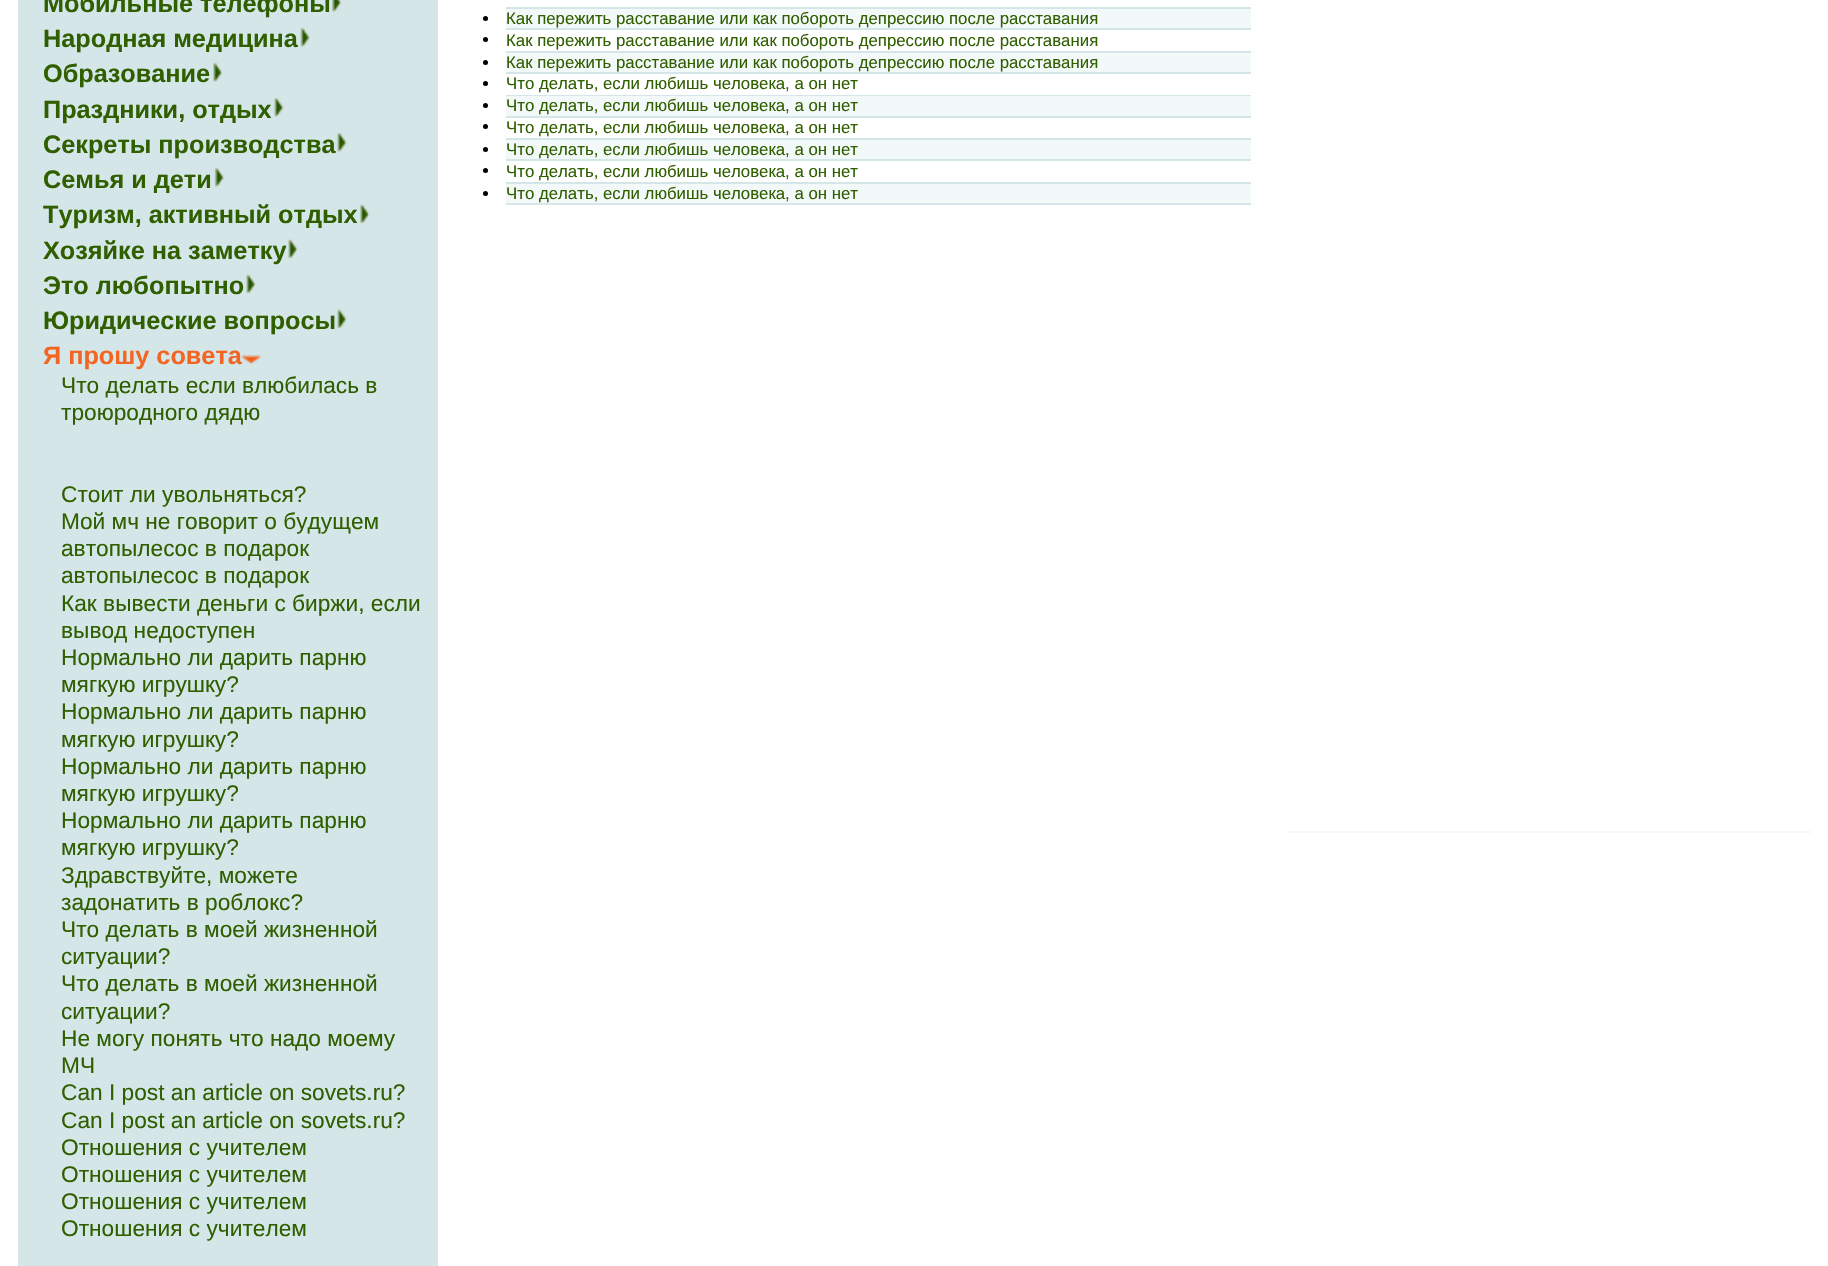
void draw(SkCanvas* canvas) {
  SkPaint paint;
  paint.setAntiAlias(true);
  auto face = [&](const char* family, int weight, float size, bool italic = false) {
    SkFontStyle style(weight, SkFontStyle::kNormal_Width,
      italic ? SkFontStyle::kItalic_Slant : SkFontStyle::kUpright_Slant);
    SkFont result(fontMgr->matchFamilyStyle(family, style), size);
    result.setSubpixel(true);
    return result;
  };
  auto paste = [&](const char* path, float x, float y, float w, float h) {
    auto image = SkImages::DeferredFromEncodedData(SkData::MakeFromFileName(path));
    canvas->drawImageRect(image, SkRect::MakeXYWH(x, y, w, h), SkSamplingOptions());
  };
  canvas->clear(0xffffffff);
  paint.setColor(0xffd5e6e9);
  canvas->drawRect(SkRect::MakeXYWH(18, 0, 420, 1266), paint);
  paste("img/1.png", 332, 0, 10, 13);
  paste("img/2.png", 300, 27, 10, 21);
  paste("img/3.png", 213, 62, 10, 21);
  paste("img/4.png", 274, 97, 10, 21);
  paste("img/4.png", 337, 132, 10, 21);
  paste("img/5.png", 214, 167, 10, 21);
  paste("img/6.png", 360, 204, 10, 20);
  paste("img/7.png", 288, 239, 10, 21);
  paste("img/7.png", 246, 274, 10, 21);
  paste("img/7.png", 337, 309, 10, 21);
  {
    const struct { float x, y, w, h; SkColor color; } items[] = {
      {506, 7, 745, 2, 0xffd5e6e9},
      {506, 9, 745, 19, 0xfff3f8f9},
      {506, 28, 745, 2, 0xffd5e6e9},
    };
    for (auto [x, y, w, h, color] : items) {
      paint.setColor(color);
      canvas->drawRect(SkRect::MakeXYWH(x, y, w, h), paint);
    }
  }
  paint.setColor(0xff000000);
  canvas->drawCircle(485.5f, 18.5f, 2.5f, paint);
  paint.setColor(0xffd5e6e9);
  canvas->drawRect(SkRect::MakeXYWH(506, 51, 745, 2), paint);
  paint.setColor(0xff000000);
  canvas->drawCircle(485.5f, 39.5f, 2.5f, paint);
  paint.setColor(0xfff3f8f9);
  canvas->drawRect(SkRect::MakeXYWH(506, 53, 745, 19), paint);
  paint.setColor(0xffd5e6e9);
  canvas->drawRect(SkRect::MakeXYWH(506, 72, 745, 2), paint);
  paint.setColor(0xff000000);
  canvas->drawCircle(485.5f, 62.5f, 2.5f, paint);
  paint.setColor(0xffd5e6e9);
  canvas->drawRect(SkRect::MakeXYWH(506, 95, 745, 1), paint);
  paint.setColor(0xff000000);
  canvas->drawCircle(485.5f, 83.5f, 2.5f, paint);
  paint.setColor(0xfff3f8f9);
  canvas->drawRect(SkRect::MakeXYWH(506, 96, 745, 20), paint);
  paint.setColor(0xffd5e6e9);
  canvas->drawRect(SkRect::MakeXYWH(506, 116, 745, 2), paint);
  paint.setColor(0xff000000);
  canvas->drawCircle(485.5f, 105.5f, 2.5f, paint);
  paint.setColor(0xffd5e6e9);
  canvas->drawRect(SkRect::MakeXYWH(506, 138, 745, 2), paint);
  paint.setColor(0xff000000);
  canvas->drawCircle(485.5f, 126.5f, 2.5f, paint);
  paint.setColor(0xfff3f8f9);
  canvas->drawRect(SkRect::MakeXYWH(506, 140, 745, 19), paint);
  paint.setColor(0xffd5e6e9);
  canvas->drawRect(SkRect::MakeXYWH(506, 159, 745, 2), paint);
  paint.setColor(0xff000000);
  canvas->drawCircle(485.5f, 149.5f, 2.5f, paint);
  paint.setColor(0xffd5e6e9);
  canvas->drawRect(SkRect::MakeXYWH(506, 182, 745, 2), paint);
  paint.setColor(0xff000000);
  canvas->drawCircle(485.5f, 170.5f, 2.5f, paint);
  paint.setColor(0xfff3f8f9);
  canvas->drawRect(SkRect::MakeXYWH(506, 184, 745, 19), paint);
  paint.setColor(0xffd5e6e9);
  canvas->drawRect(SkRect::MakeXYWH(506, 203, 745, 2), paint);
  paint.setColor(0xff000000);
  canvas->drawCircle(485.5f, 193.5f, 2.5f, paint);
  paint.setColor(0xfff3f8f9);
  canvas->drawRect(SkRect::MakeXYWH(1286, 831, 525, 2), paint);
  auto f0 = face("Liberation Sans", 700, 25.25f);
  paint.setColor(0xff305f00);
  {
    const struct { const char* s; float x, y; } items[] = {
      {"Мобильные телефоны", 43, 12},
      {"Народная медицина", 43, 47},
      {"Образование", 43, 82},
      {"Праздники, отдых", 43, 118},
      {"Секреты производства", 43, 153},
      {"Семья и дети", 43, 188},
      {"Туризм, активный отдых", 43, 223},
      {"Хозяйке на заметку", 43, 259},
      {"Это любопытно", 43, 294},
      {"Юридические вопросы", 43, 329},
    };
    for (auto [s, x, y] : items) {
      canvas->drawString(s, x, y, f0, paint);
    }
  }
  paint.setColor(0xfff26522);
  canvas->drawString("Я прошу совета", 43, 364, f0, paint);
  paste("img/8.png", 241, 355, 20, 10);
  auto f1 = face("Liberation Sans", 400, 22.7f);
  paint.setColor(0xff305f00);
  {
    const struct { const char* s; float x, y; } items[] = {
      {"Что делать если влюбилась в", 61, 393},
      {"троюродного дядю", 61, 420},
      {"Стоит ли увольняться?", 61, 502},
      {"Мой мч не говорит о будущем", 61, 529},
      {"автопылесос в подарок", 61, 556},
      {"автопылесос в подарок", 61, 583},
      {"Как вывести деньги с биржи, если", 61, 611},
      {"вывод недоступен", 61, 638},
      {"Нормально ли дарить парню", 61, 665},
      {"мягкую игрушку?", 61, 692},
      {"Нормально ли дарить парню", 61, 719},
      {"мягкую игрушку?", 61, 747},
      {"Нормально ли дарить парню", 61, 774},
      {"мягкую игрушку?", 61, 801},
      {"Нормально ли дарить парню", 61, 828},
      {"мягкую игрушку?", 61, 855},
      {"Здравствуйте, можете", 61, 883},
      {"задонатить в роблокс?", 61, 910},
      {"Что делать в моей жизненной", 61, 937},
      {"ситуации?", 61, 964},
      {"Что делать в моей жизненной", 61, 991},
      {"ситуации?", 61, 1019},
      {"Не могу понять что надо моему", 61, 1046},
      {"МЧ", 61, 1073},
      {"Can I post an article on sovets.ru?", 61, 1100},
      {"Can I post an article on sovets.ru?", 61, 1128},
      {"Отношения с учителем", 61, 1155},
      {"Отношения с учителем", 61, 1182},
      {"Отношения с учителем", 61, 1209},
      {"Отношения с учителем", 61, 1236},
    };
    for (auto [s, x, y] : items) {
      canvas->drawString(s, x, y, f1, paint);
    }
  }
  auto f2 = face("Liberation Sans", 400, 16.8f);
  {
    const struct { const char* s; float x, y; } items[] = {
      {"Как пережить расставание или как побороть депрессию после расставания", 506, 24},
      {"Как пережить расставание или как побороть депрессию после расставания", 506, 46},
      {"Как пережить расставание или как побороть депрессию после расставания", 506, 68},
      {"Что делать, если любишь человека, а он нет", 506, 89},
      {"Что делать, если любишь человека, а он нет", 506, 111},
      {"Что делать, если любишь человека, а он нет", 506, 133},
      {"Что делать, если любишь человека, а он нет", 506, 155},
      {"Что делать, если любишь человека, а он нет", 506, 177},
      {"Что делать, если любишь человека, а он нет", 506, 199},
    };
    for (auto [s, x, y] : items) {
      canvas->drawString(s, x, y, f2, paint);
    }
  }
}
